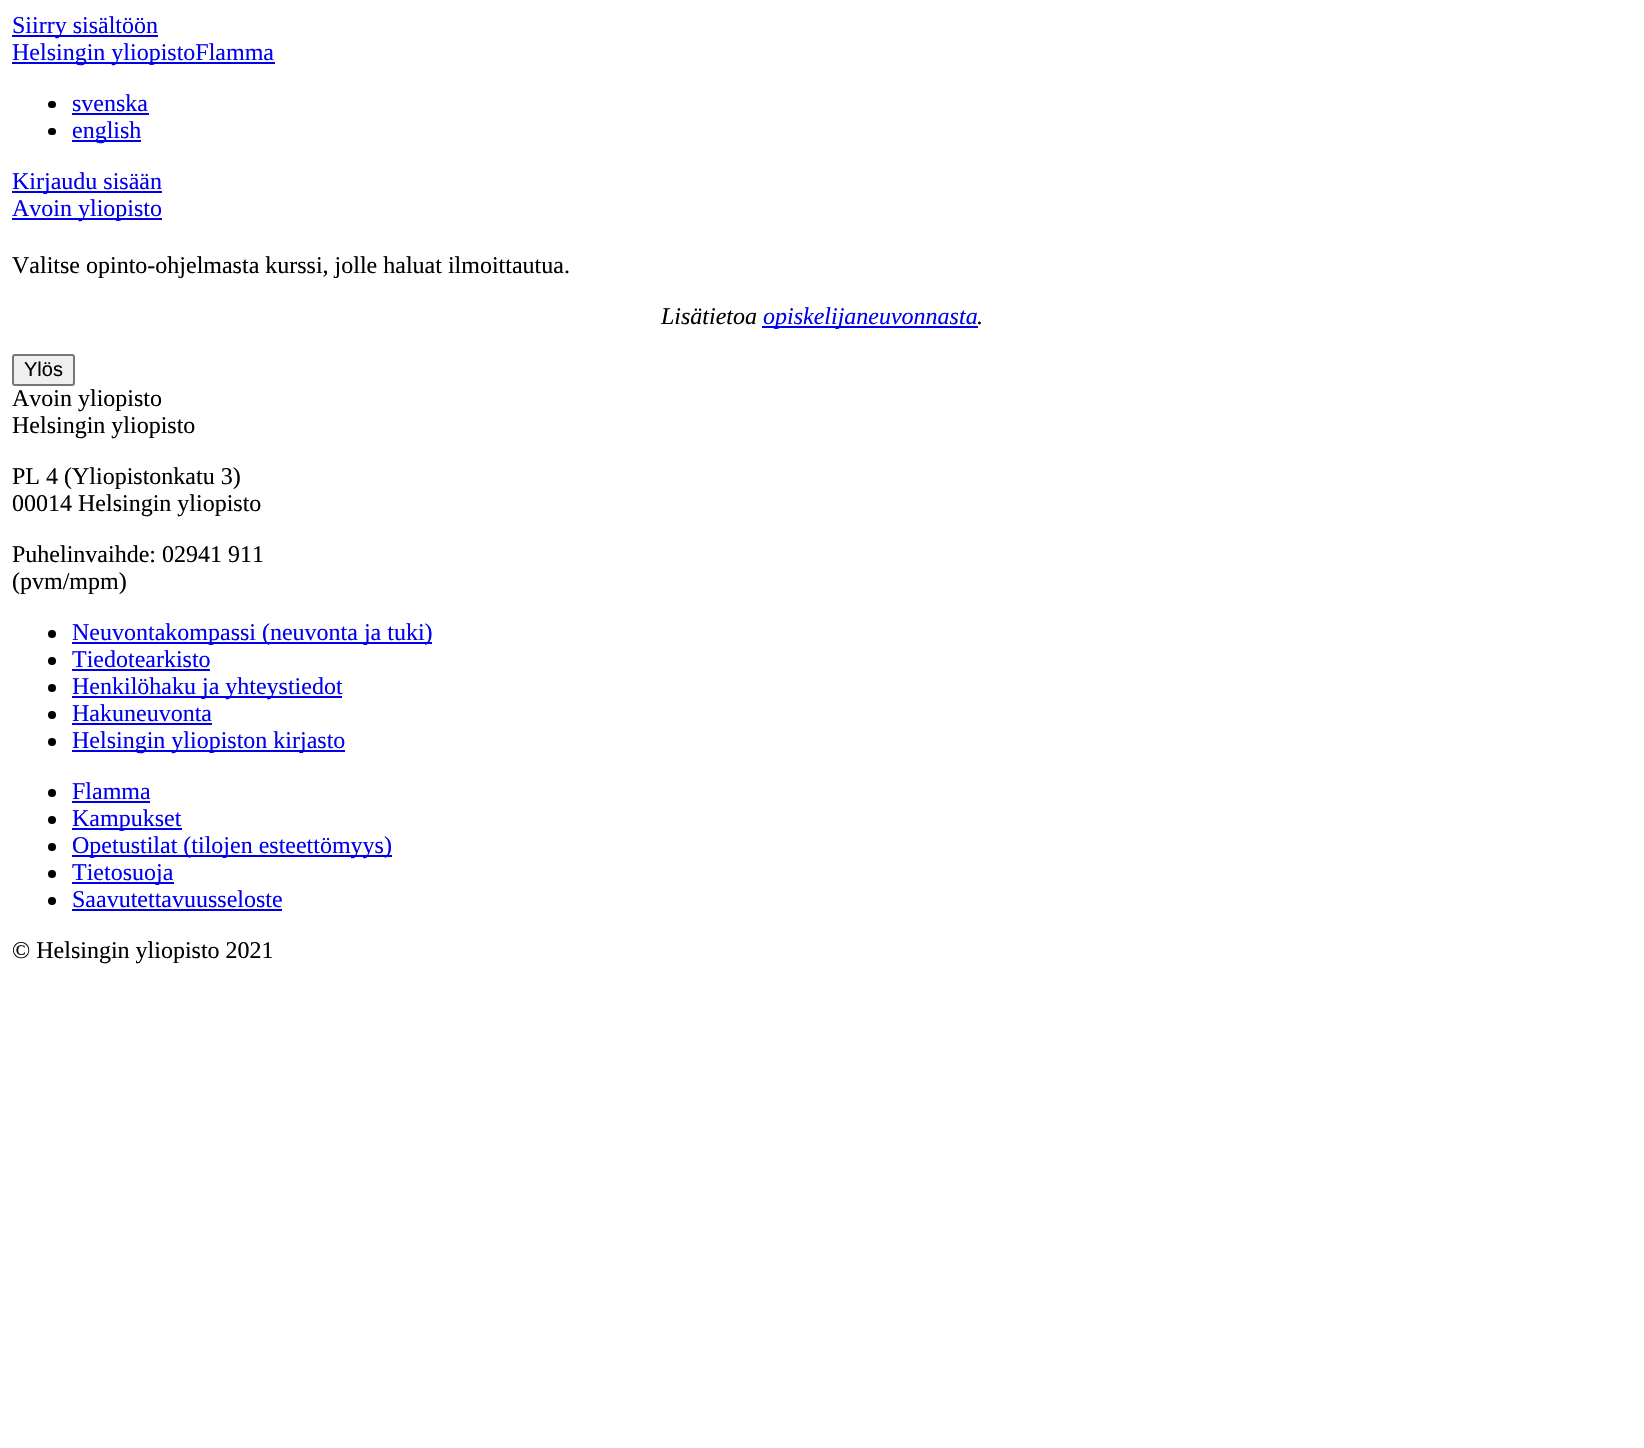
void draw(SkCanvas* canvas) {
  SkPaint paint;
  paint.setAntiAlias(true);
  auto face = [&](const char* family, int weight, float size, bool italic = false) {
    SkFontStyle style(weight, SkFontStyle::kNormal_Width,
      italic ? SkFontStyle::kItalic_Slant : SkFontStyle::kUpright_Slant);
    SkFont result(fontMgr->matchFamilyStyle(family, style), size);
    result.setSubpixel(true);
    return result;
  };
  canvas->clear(0xffffffff);
  paint.setColor(0xff0000ee);
  canvas->drawRect(SkRect::MakeXYWH(12, 35, 146, 2), paint);
  canvas->drawRect(SkRect::MakeXYWH(12, 62, 263, 2), paint);
  paint.setColor(0xff000000);
  canvas->drawRoundRect(SkRect::MakeXYWH(48, 101, 8, 7), 3.5f, 3.5f, paint);
  paint.setColor(0xff0000ee);
  canvas->drawRect(SkRect::MakeXYWH(72, 113, 77, 2), paint);
  paint.setColor(0xff000000);
  canvas->drawRoundRect(SkRect::MakeXYWH(48, 128, 8, 7), 3.5f, 3.5f, paint);
  {
    const struct { float x, y, w, h; SkColor color; } items[] = {
      {72, 140, 69, 2, 0xff0000ee},
      {12, 191, 150, 2, 0xff0000ee},
      {12, 218, 150, 2, 0xff0000ee},
      {762, 326, 216, 2, 0xff0000ee},
    };
    for (auto [x, y, w, h, color] : items) {
      paint.setColor(color);
      canvas->drawRect(SkRect::MakeXYWH(x, y, w, h), paint);
    }
  }
  paint.setColor(0xffefefef);
  canvas->drawRoundRect(SkRect::MakeXYWH(13, 355, 61, 30), 2, 2, paint);
  paint.setStroke(true);
  paint.setStrokeWidth(2);
  paint.setColor(0xff767676);
  canvas->drawRoundRect(SkRect::MakeXYWH(13, 355, 61, 30), 2, 2, paint);
  paint.setStroke(false);
  paint.setColor(0xff000000);
  canvas->drawCircle(52, 634, 4, paint);
  paint.setColor(0xff0000ee);
  canvas->drawRect(SkRect::MakeXYWH(72, 642, 360, 2), paint);
  paint.setColor(0xff000000);
  canvas->drawCircle(52, 661, 4, paint);
  paint.setColor(0xff0000ee);
  canvas->drawRect(SkRect::MakeXYWH(72, 669, 138, 2), paint);
  paint.setColor(0xff000000);
  canvas->drawCircle(52, 688, 4, paint);
  paint.setColor(0xff0000ee);
  canvas->drawRect(SkRect::MakeXYWH(72, 696, 270, 2), paint);
  paint.setColor(0xff000000);
  canvas->drawCircle(52, 715, 4, paint);
  paint.setColor(0xff0000ee);
  canvas->drawRect(SkRect::MakeXYWH(72, 723, 140, 2), paint);
  paint.setColor(0xff000000);
  canvas->drawCircle(52, 742, 4, paint);
  paint.setColor(0xff0000ee);
  canvas->drawRect(SkRect::MakeXYWH(72, 750, 273, 2), paint);
  paint.setColor(0xff000000);
  canvas->drawCircle(52, 793, 4, paint);
  paint.setColor(0xff0000ee);
  canvas->drawRect(SkRect::MakeXYWH(72, 801, 78, 2), paint);
  paint.setColor(0xff000000);
  canvas->drawCircle(52, 820, 4, paint);
  paint.setColor(0xff0000ee);
  canvas->drawRect(SkRect::MakeXYWH(72, 828, 110, 2), paint);
  paint.setColor(0xff000000);
  canvas->drawCircle(52, 847, 4, paint);
  paint.setColor(0xff0000ee);
  canvas->drawRect(SkRect::MakeXYWH(72, 855, 320, 2), paint);
  paint.setColor(0xff000000);
  canvas->drawCircle(52, 874, 4, paint);
  paint.setColor(0xff0000ee);
  canvas->drawRect(SkRect::MakeXYWH(72, 882, 102, 2), paint);
  paint.setColor(0xff000000);
  canvas->drawCircle(52, 901, 4, paint);
  paint.setColor(0xff0000ee);
  canvas->drawRect(SkRect::MakeXYWH(72, 909, 210, 2), paint);
  auto f0 = face("Liberation Serif", 400, 24);
  {
    const struct { const char* s; float x, y; } items[] = {
      {"Siirry sisältöön", 12, 33},
      {"Helsingin yliopistoFlamma", 12, 60},
      {"svenska", 72, 111},
      {"english", 72, 138},
      {"Kirjaudu sisään", 12, 189},
      {"Avoin yliopisto", 12, 216},
    };
    for (auto [s, x, y] : items) {
      canvas->drawString(s, x, y, f0, paint);
    }
  }
  paint.setColor(0xff000000);
  canvas->drawString("Valitse opinto-ohjelmasta kurssi, jolle haluat ilmoittautua.", 12, 273, f0, paint);
  auto f1 = face("Liberation Serif", 400, 24, true);
  canvas->drawString("Lisätietoa", 661, 324, f1, paint);
  paint.setColor(0xff0000ee);
  canvas->drawString("opiskelijaneuvonnasta", 763, 324, f1, paint);
  paint.setColor(0xff000000);
  canvas->drawString(".", 977, 324, f1, paint);
  auto f2 = face("Liberation Sans", 400, 20);
  canvas->drawString("Ylös", 24, 376, f2, paint);
  {
    const struct { const char* s; float x, y; } items[] = {
      {"Avoin yliopisto", 12, 406},
      {"Helsingin yliopisto", 12, 433},
      {"PL 4 (Yliopistonkatu 3)", 12, 484},
      {"00014 Helsingin yliopisto", 12, 511},
      {"Puhelinvaihde: 02941 911", 12, 562},
      {"(pvm/mpm)", 12, 589},
    };
    for (auto [s, x, y] : items) {
      canvas->drawString(s, x, y, f0, paint);
    }
  }
  paint.setColor(0xff0000ee);
  {
    const struct { const char* s; float x, y; } items[] = {
      {"Neuvontakompassi (neuvonta ja tuki)", 72, 640},
      {"Tiedotearkisto", 72, 667},
      {"Henkilöhaku ja yhteystiedot", 72, 694},
      {"Hakuneuvonta", 72, 721},
      {"Helsingin yliopiston kirjasto", 72, 748},
      {"Flamma", 72, 799},
      {"Kampukset", 72, 826},
      {"Opetustilat (tilojen esteettömyys)", 72, 853},
      {"Tietosuoja", 72, 880},
      {"Saavutettavuusseloste", 72, 907},
    };
    for (auto [s, x, y] : items) {
      canvas->drawString(s, x, y, f0, paint);
    }
  }
  paint.setColor(0xff000000);
  canvas->drawString("© Helsingin yliopisto 2021", 12, 958, f0, paint);
}
